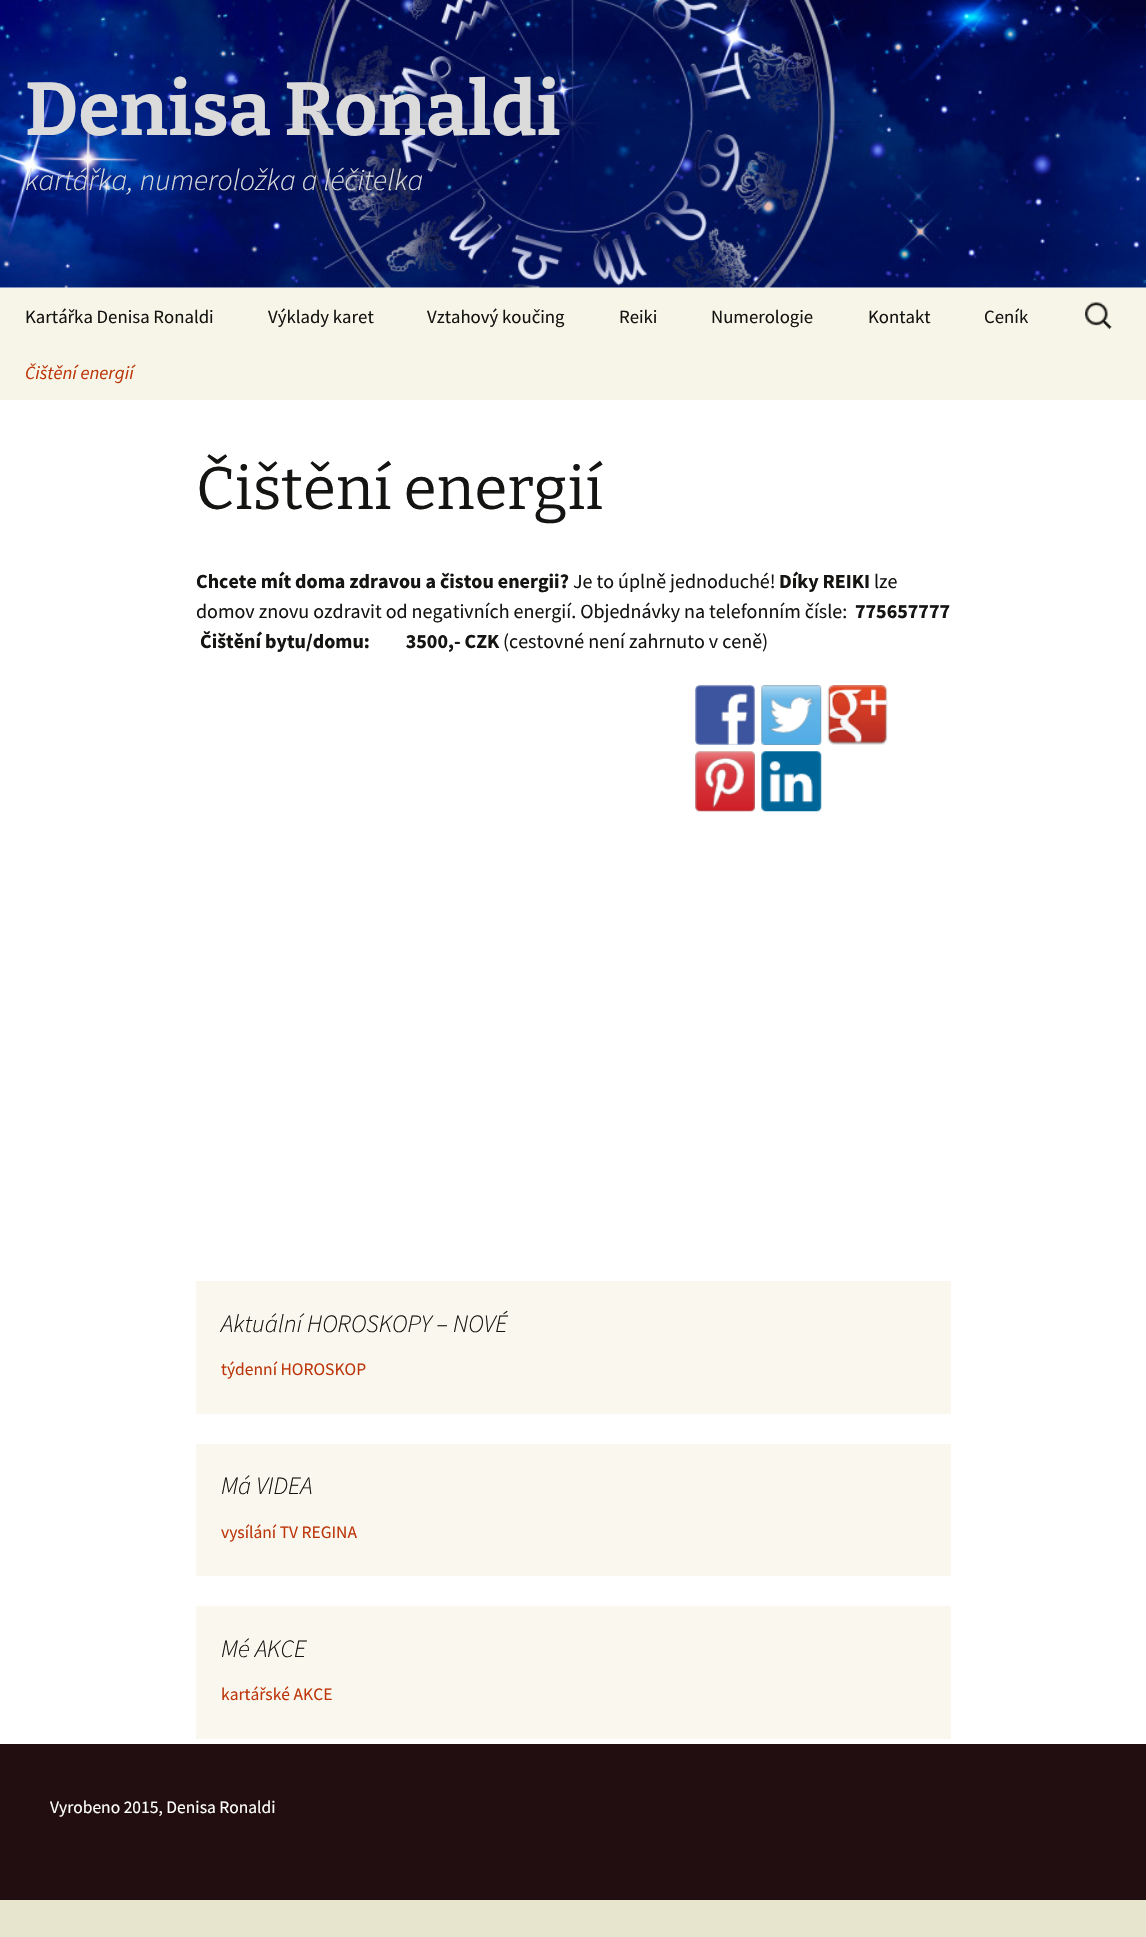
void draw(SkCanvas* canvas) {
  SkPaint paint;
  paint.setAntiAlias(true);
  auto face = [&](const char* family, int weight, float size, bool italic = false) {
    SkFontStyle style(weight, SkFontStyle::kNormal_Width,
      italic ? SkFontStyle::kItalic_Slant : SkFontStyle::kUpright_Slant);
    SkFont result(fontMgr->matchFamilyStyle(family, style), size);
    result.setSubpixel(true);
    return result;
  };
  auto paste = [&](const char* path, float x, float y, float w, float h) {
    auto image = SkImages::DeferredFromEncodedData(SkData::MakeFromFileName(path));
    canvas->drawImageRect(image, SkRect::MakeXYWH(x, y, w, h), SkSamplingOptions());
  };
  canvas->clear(0xffffffff);
  paste("img/1.png", 0, 0, 1146, 288);
  paint.setColor(0xfff7f5e7);
  canvas->drawRect(SkRect::MakeXYWH(0, 288, 1146, 112), paint);
  paste("img/2.png", 1085, 302, 27, 27);
  paste("img/3.png", 695, 685, 60, 60);
  paste("img/4.png", 761, 685, 61, 60);
  paste("img/5.png", 827, 685, 61, 60);
  paste("img/6.png", 695, 751, 60, 61);
  paste("img/7.png", 761, 751, 61, 61);
  {
    const struct { float x, y, w, h; SkColor color; } items[] = {
      {196, 1281, 755, 133, 0xfffaf8ee},
      {196, 1444, 755, 132, 0xfffaf8ee},
      {196, 1606, 755, 133, 0xfffaf8ee},
      {0, 1900, 1146, 37, 0xffe8e5ce},
      {0, 1744, 1146, 156, 0xff220e10},
    };
    for (auto [x, y, w, h, color] : items) {
      paint.setColor(color);
      canvas->drawRect(SkRect::MakeXYWH(x, y, w, h), paint);
    }
  }
  auto f0 = face("Bitter", 700, 75);
  paint.setColor(0xffdbdbdb);
  canvas->drawString("Denisa Ronaldi", 25, 135, f0, paint);
  auto f1 = face("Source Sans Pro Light", 300, 30, true);
  canvas->drawString("kartářka, numeroložka a léčitelka", 25, 190, f1, paint);
  auto f2 = face("Source Sans Pro", 400, 18.75f);
  paint.setColor(0xff141412);
  {
    const struct { const char* s; float x, y; } items[] = {
      {"Kartářka Denisa Ronaldi", 25, 323},
      {"Výklady karet", 268, 323},
      {"Vztahový koučing", 427, 323},
      {"Reiki", 619, 323},
      {"Numerologie", 711, 323},
      {"Kontakt", 868, 323},
      {"Ceník", 984, 323},
    };
    for (auto [s, x, y] : items) {
      canvas->drawString(s, x, y, f2, paint);
    }
  }
  auto f3 = face("Source Sans Pro", 400, 18.75f, true);
  paint.setColor(0xffbc360a);
  canvas->drawString("Čištění energií", 25, 379, f3, paint);
  auto f4 = face("Bitter", 400, 60);
  paint.setColor(0xff141412);
  canvas->drawString("Čištění energií", 196, 509, f4, paint);
  auto f5 = face("Source Sans Pro", 700, 20);
  canvas->drawString("Chcete mít doma zdravou a čistou energii?", 196, 588, f5, paint);
  auto f6 = face("Source Sans Pro", 400, 20);
  canvas->drawString("Je to úplně jednoduché!", 573, 588, f6, paint);
  canvas->drawString("Díky REIKI", 779, 588, f5, paint);
  canvas->drawString("lze", 874, 588, f6, paint);
  canvas->drawString("domov znovu ozdravit od negativních energií. Objednávky na telefonním čísle:", 196, 618, f6, paint);
  canvas->drawString("775657777", 855, 618, f5, paint);
  canvas->drawString("Čištění bytu/domu:         3500,- CZK", 200, 648, f5, paint);
  canvas->drawString("(cestovné není zahrnuto v ceně)", 503, 648, f6, paint);
  auto f7 = face("Source Sans Pro Light", 300, 25, true);
  canvas->drawString("Aktuální HOROSKOPY – NOVÉ", 221, 1332, f7, paint);
  auto f8 = face("Source Sans Pro", 400, 17.5f);
  paint.setColor(0xffbc360a);
  canvas->drawString("týdenní HOROSKOP", 221, 1375, f8, paint);
  paint.setColor(0xff141412);
  canvas->drawString("Má VIDEA", 221, 1494, f7, paint);
  paint.setColor(0xffbc360a);
  canvas->drawString("vysílání TV REGINA", 221, 1538, f8, paint);
  paint.setColor(0xff141412);
  canvas->drawString("Mé AKCE", 221, 1657, f7, paint);
  paint.setColor(0xffbc360a);
  canvas->drawString("kartářské AKCE", 221, 1700, f8, paint);
  paint.setColor(0xffffffff);
  canvas->drawString("Vyrobeno 2015, Denisa Ronaldi", 50, 1813, f8, paint);
}
